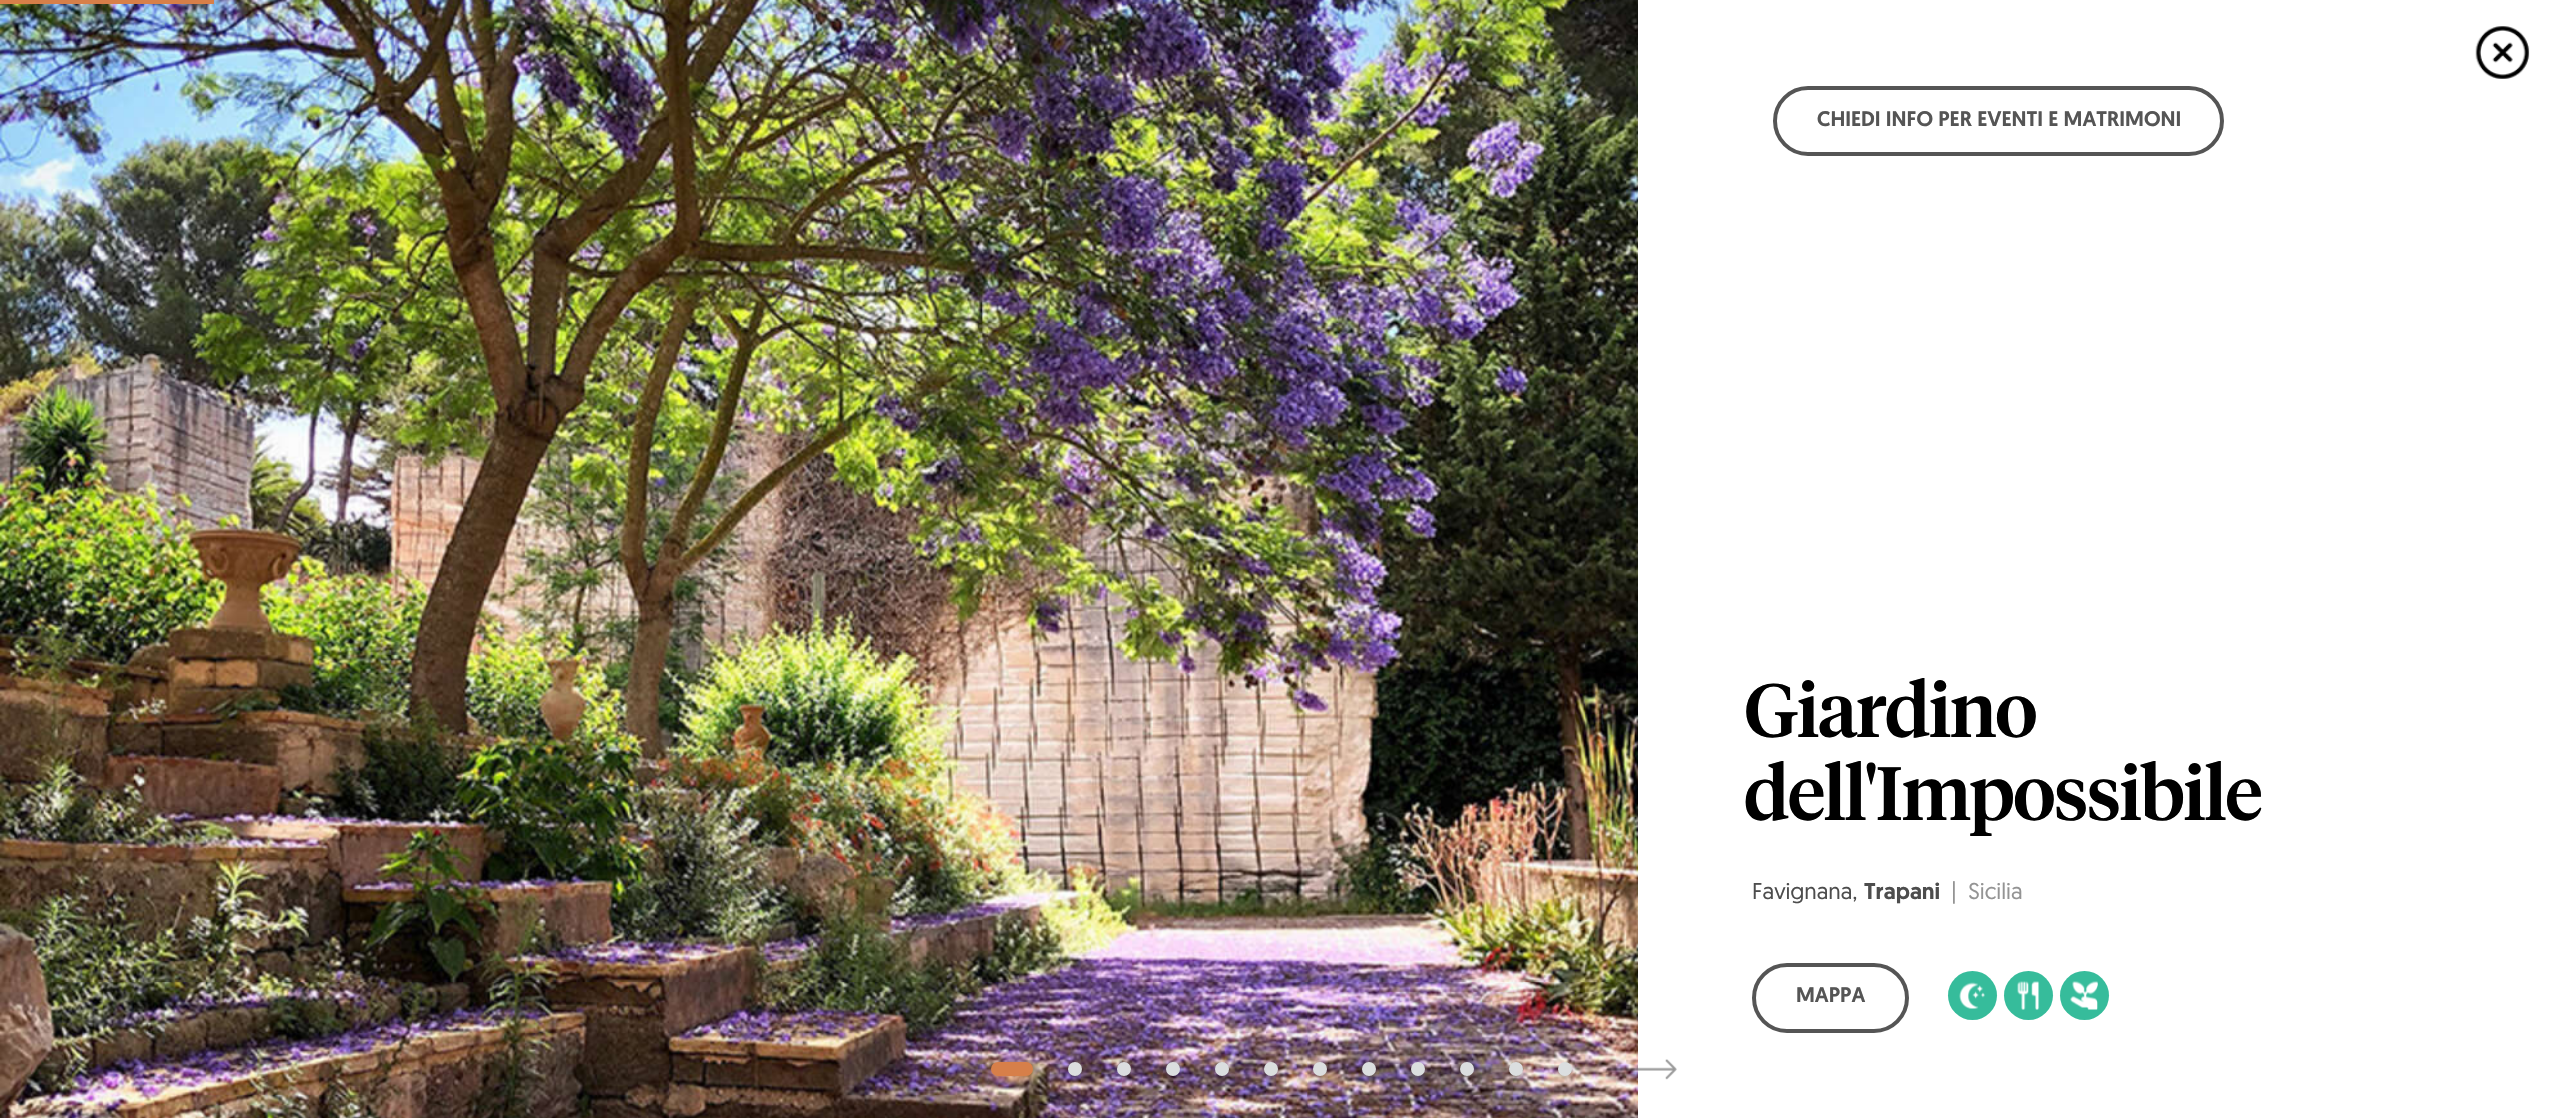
void draw(SkCanvas* canvas) {
  SkPaint paint;
  paint.setAntiAlias(true);
  auto face = [&](const char* family, int weight, float size, bool italic = false) {
    SkFontStyle style(weight, SkFontStyle::kNormal_Width,
      italic ? SkFontStyle::kItalic_Slant : SkFontStyle::kUpright_Slant);
    SkFont result(fontMgr->matchFamilyStyle(family, style), size);
    result.setSubpixel(true);
    return result;
  };
  auto writeSpaced = [&](const char* s, float x, float y, const SkFont& font, const SkPaint& ink, float letter, float word) {
    std::vector<SkGlyphID> glyphs(font.countText(s, strlen(s), SkTextEncoding::kUTF8));
    std::vector<float> xs(glyphs.size());
    font.textToGlyphs(s, strlen(s), SkTextEncoding::kUTF8, glyphs);
    font.getXPos(glyphs, xs, x);
    float extra = 0;
    for (size_t i = 0; i < glyphs.size(); i++) {
      xs[i] += extra;
      extra += letter + word * (glyphs[i] == font.unicharToGlyph(' '));
    }
    canvas->drawTextBlob(SkTextBlob::MakeFromPosHGlyphs(glyphs, xs, y, font), 0, 0, ink);
  };
  auto paste = [&](const char* path, float x, float y, float w, float h) {
    auto image = SkImages::DeferredFromEncodedData(SkData::MakeFromFileName(path));
    canvas->drawImageRect(image, SkRect::MakeXYWH(x, y, w, h), SkSamplingOptions());
  };
  canvas->clear(0xffffffff);
  paste("img/2.png", 0, 0, 1638, 1118);
  paint.setColor(0xffd77f49);
  canvas->drawRect(SkRect::MakeXYWH(0, 0, 214, 4), paint);
  paste("img/1.png", 2475, 26, 55, 53);
  paint.setStroke(true);
  paint.setStrokeWidth(4);
  paint.setColor(0xff555555);
  canvas->drawRoundRect(SkRect::MakeXYWH(1775, 88, 447, 66), 33, 33, paint);
  canvas->drawRoundRect(SkRect::MakeXYWH(1754, 965, 153, 66), 33, 33, paint);
  paint.setStroke(false);
  paint.setColor(0xff36bc9b);
  canvas->drawCircle(1972.5f, 995.5f, 24.5f, paint);
  paste("img/3.png", 1959, 982, 26, 27);
  canvas->drawCircle(2028.5f, 995.5f, 24.5f, paint);
  paste("img/4.png", 2017, 981, 23, 29);
  canvas->drawCircle(2084.5f, 995.5f, 24.5f, paint);
  paste("img/5.png", 2070, 981, 28, 29);
  paint.setColor(0xa6d77f49);
  paint.setMaskFilter(SkMaskFilter::MakeBlur(kNormal_SkBlurStyle, 4.5f));
  canvas->drawRoundRect(SkRect::MakeXYWH(991, 1066, 42, 14), 7, 7, paint);
  paint.setMaskFilter(nullptr);
  paint.setColor(0xffd77f49);
  canvas->drawRoundRect(SkRect::MakeXYWH(991, 1062, 42, 14), 7, 7, paint);
  paint.setColor(0x2e000000);
  paint.setMaskFilter(SkMaskFilter::MakeBlur(kNormal_SkBlurStyle, 2.5f));
  canvas->drawRoundRect(SkRect::MakeXYWH(1068, 1066, 14, 14), 7, 7, paint);
  paint.setMaskFilter(nullptr);
  paint.setColor(0xffdbdedf);
  canvas->drawCircle(1075, 1069, 7, paint);
  paint.setColor(0x2e000000);
  paint.setMaskFilter(SkMaskFilter::MakeBlur(kNormal_SkBlurStyle, 2.5f));
  canvas->drawRoundRect(SkRect::MakeXYWH(1117, 1066, 14, 14), 7, 7, paint);
  paint.setMaskFilter(nullptr);
  paint.setColor(0xffdbdedf);
  canvas->drawCircle(1124, 1069, 7, paint);
  paint.setColor(0x2e000000);
  paint.setMaskFilter(SkMaskFilter::MakeBlur(kNormal_SkBlurStyle, 2.5f));
  canvas->drawRoundRect(SkRect::MakeXYWH(1166, 1066, 14, 14), 7, 7, paint);
  paint.setMaskFilter(nullptr);
  paint.setColor(0xffdbdedf);
  canvas->drawCircle(1173, 1069, 7, paint);
  paint.setColor(0x2e000000);
  paint.setMaskFilter(SkMaskFilter::MakeBlur(kNormal_SkBlurStyle, 2.5f));
  canvas->drawRoundRect(SkRect::MakeXYWH(1215, 1066, 14, 14), 7, 7, paint);
  paint.setMaskFilter(nullptr);
  paint.setColor(0xffdbdedf);
  canvas->drawCircle(1222, 1069, 7, paint);
  paint.setColor(0x2e000000);
  paint.setMaskFilter(SkMaskFilter::MakeBlur(kNormal_SkBlurStyle, 2.5f));
  canvas->drawRoundRect(SkRect::MakeXYWH(1264, 1066, 14, 14), 7, 7, paint);
  paint.setMaskFilter(nullptr);
  paint.setColor(0xffdbdedf);
  canvas->drawCircle(1271, 1069, 7, paint);
  paint.setColor(0x2e000000);
  paint.setMaskFilter(SkMaskFilter::MakeBlur(kNormal_SkBlurStyle, 2.5f));
  canvas->drawRoundRect(SkRect::MakeXYWH(1313, 1066, 14, 14), 7, 7, paint);
  paint.setMaskFilter(nullptr);
  paint.setColor(0xffdbdedf);
  canvas->drawCircle(1320, 1069, 7, paint);
  paint.setColor(0x2e000000);
  paint.setMaskFilter(SkMaskFilter::MakeBlur(kNormal_SkBlurStyle, 2.5f));
  canvas->drawRoundRect(SkRect::MakeXYWH(1362, 1066, 14, 14), 7, 7, paint);
  paint.setMaskFilter(nullptr);
  paint.setColor(0xffdbdedf);
  canvas->drawCircle(1369, 1069, 7, paint);
  paint.setColor(0x2e000000);
  paint.setMaskFilter(SkMaskFilter::MakeBlur(kNormal_SkBlurStyle, 2.5f));
  canvas->drawRoundRect(SkRect::MakeXYWH(1411, 1066, 14, 14), 7, 7, paint);
  paint.setMaskFilter(nullptr);
  paint.setColor(0xffdbdedf);
  canvas->drawCircle(1418, 1069, 7, paint);
  paint.setColor(0x2e000000);
  paint.setMaskFilter(SkMaskFilter::MakeBlur(kNormal_SkBlurStyle, 2.5f));
  canvas->drawRoundRect(SkRect::MakeXYWH(1460, 1066, 14, 14), 7, 7, paint);
  paint.setMaskFilter(nullptr);
  paint.setColor(0xffdbdedf);
  canvas->drawCircle(1467, 1069, 7, paint);
  paint.setColor(0x2e000000);
  paint.setMaskFilter(SkMaskFilter::MakeBlur(kNormal_SkBlurStyle, 2.5f));
  canvas->drawRoundRect(SkRect::MakeXYWH(1509, 1066, 14, 14), 7, 7, paint);
  paint.setMaskFilter(nullptr);
  paint.setColor(0xffdbdedf);
  canvas->drawCircle(1516, 1069, 7, paint);
  paint.setColor(0x2e000000);
  paint.setMaskFilter(SkMaskFilter::MakeBlur(kNormal_SkBlurStyle, 2.5f));
  canvas->drawRoundRect(SkRect::MakeXYWH(1558, 1066, 14, 14), 7, 7, paint);
  paint.setMaskFilter(nullptr);
  paint.setColor(0xffdbdedf);
  canvas->drawCircle(1565, 1069, 7, paint);
  paste("img/6.png", 1606, 1059, 71, 21);
  auto f0 = face("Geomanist", 500, 21);
  paint.setColor(0xff555555);
  canvas->drawString("CHIEDI INFO PER EVENTI E MATRIMONI", 1817, 126, f0, paint);
  auto f1 = face("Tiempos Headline", 500, 75.25f);
  paint.setColor(0xff000000);
  writeSpaced("Giardino", 1744, 737, f1, paint, -1.5f, 0);
  writeSpaced("dell'Impossibile", 1744, 820, f1, paint, -1.5f, 0);
  auto f2 = face("Geomanist", 400, 22.75f);
  paint.setColor(0xff4d4d4d);
  canvas->drawString("Favignana,", 1752, 899, f2, paint);
  auto f3 = face("Geomanist", 500, 22.75f);
  canvas->drawString("Trapani", 1864, 899, f3, paint);
  paint.setColor(0xff949494);
  canvas->drawString("|  Sicilia", 1951, 899, f2, paint);
  paint.setColor(0xff555555);
  canvas->drawString("MAPPA", 1796, 1002, f0, paint);
}
